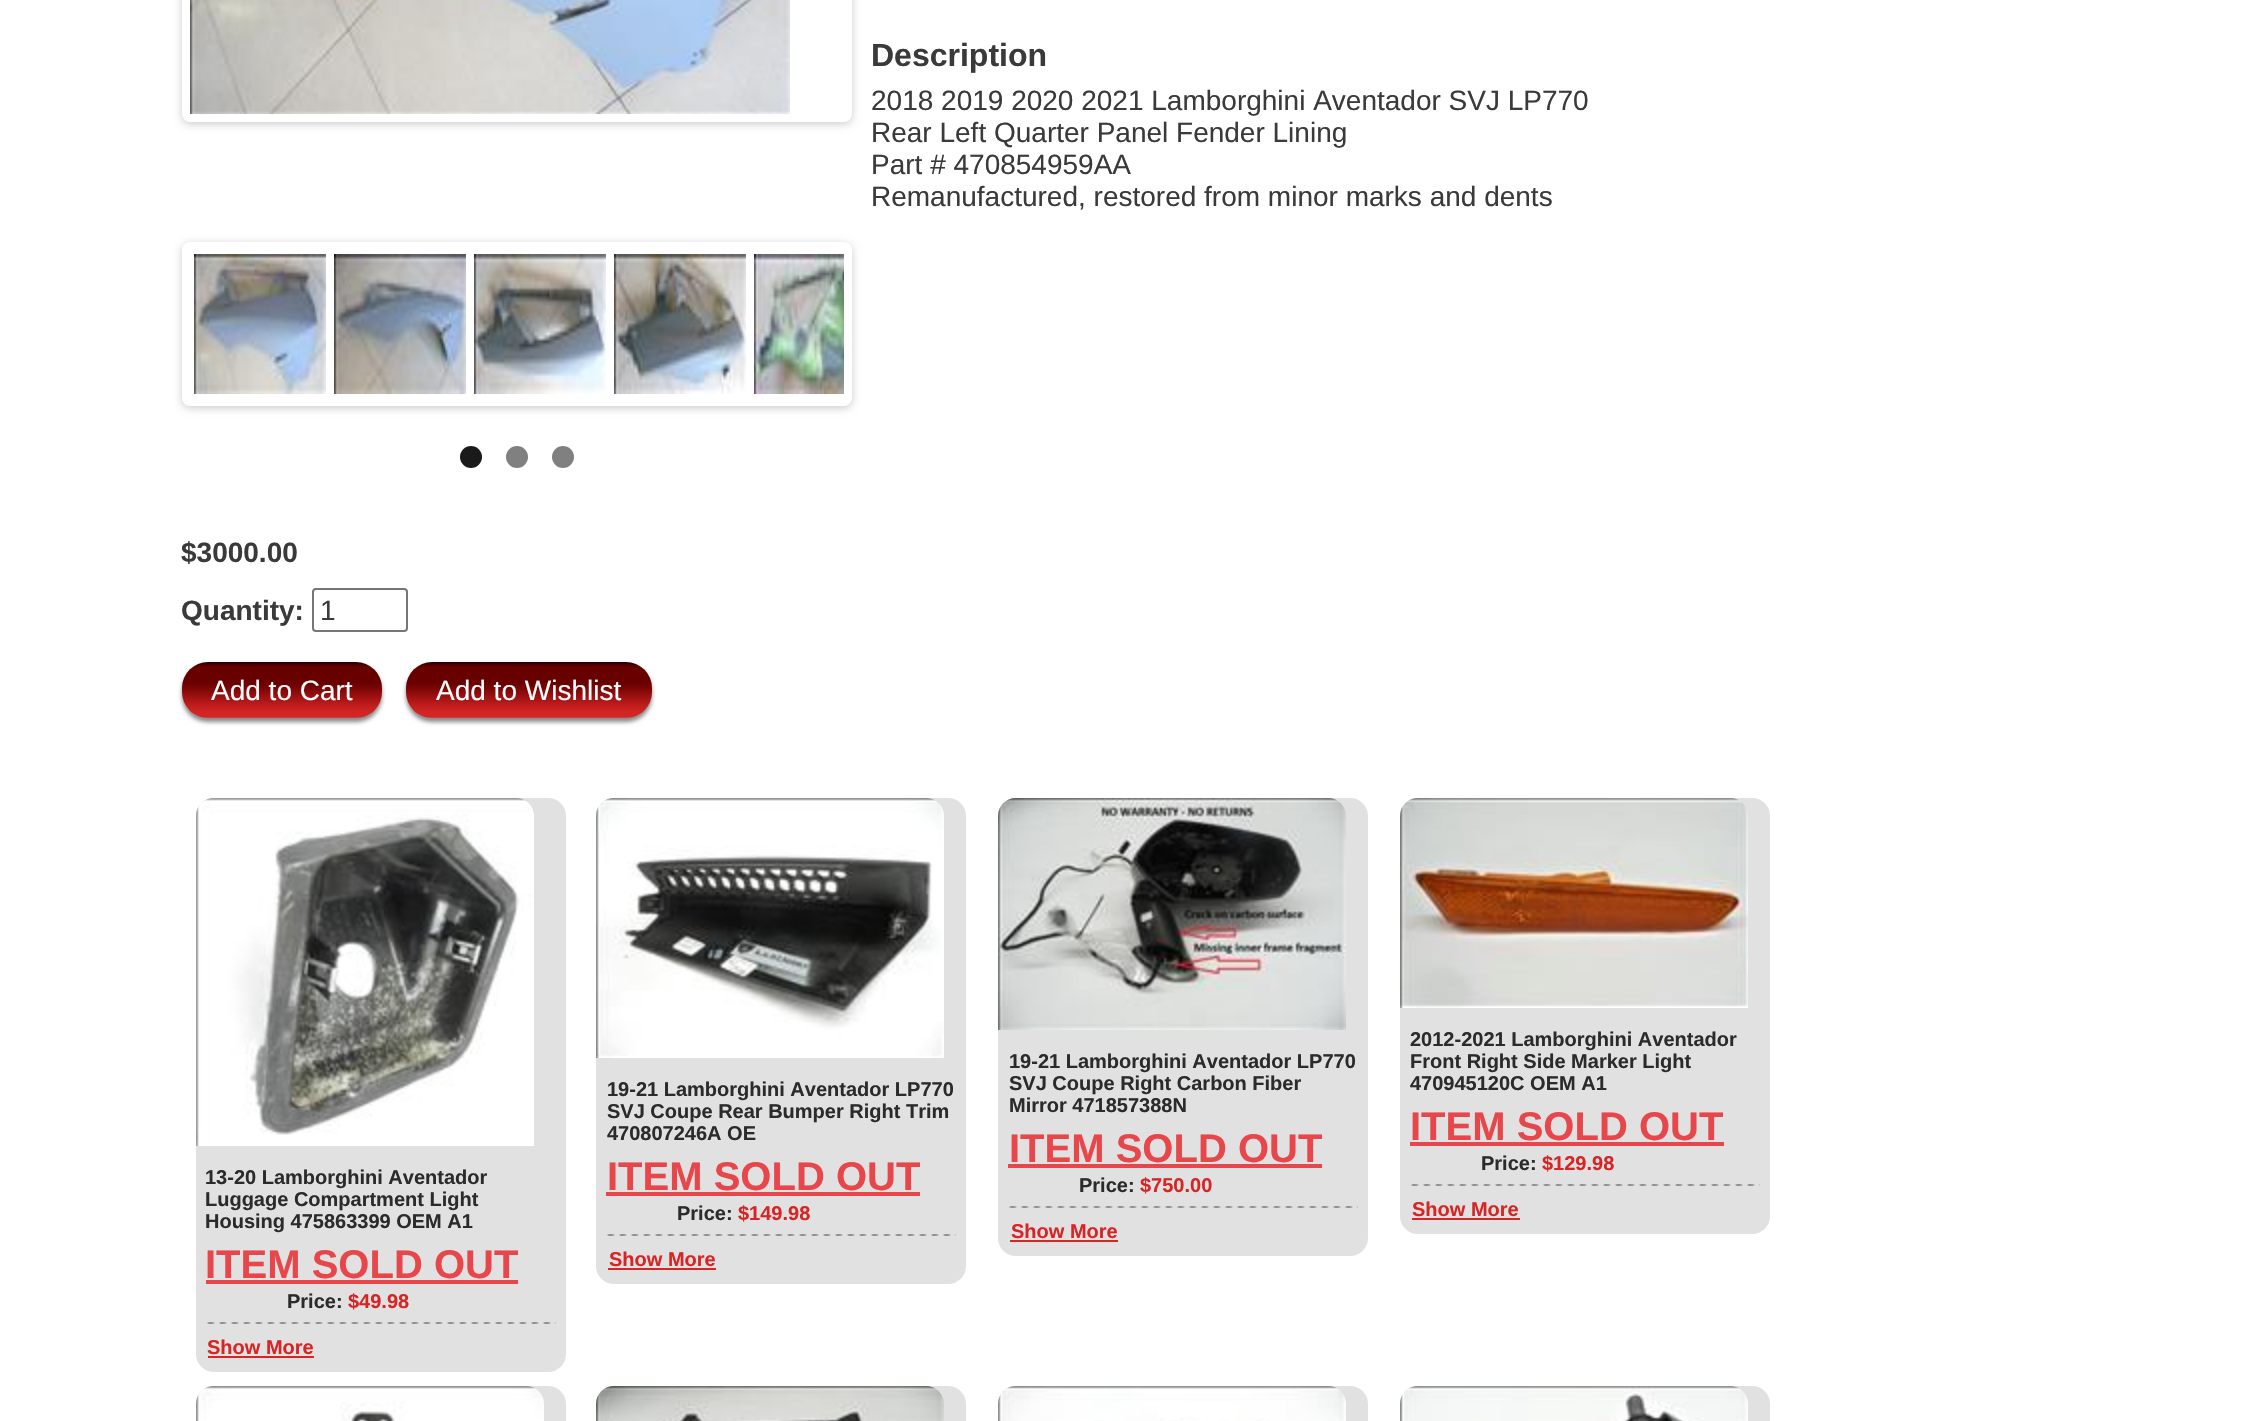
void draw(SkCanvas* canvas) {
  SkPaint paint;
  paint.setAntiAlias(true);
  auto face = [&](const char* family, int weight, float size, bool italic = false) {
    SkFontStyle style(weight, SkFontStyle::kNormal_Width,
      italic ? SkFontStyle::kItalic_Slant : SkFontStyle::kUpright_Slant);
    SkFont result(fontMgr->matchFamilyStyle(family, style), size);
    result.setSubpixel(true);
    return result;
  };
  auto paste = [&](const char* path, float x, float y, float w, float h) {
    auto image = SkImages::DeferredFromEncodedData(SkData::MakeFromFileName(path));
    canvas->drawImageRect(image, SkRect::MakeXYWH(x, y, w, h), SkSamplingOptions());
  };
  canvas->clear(0xffffffff);
  paint.setColor(0x33000000);
  paint.setMaskFilter(SkMaskFilter::MakeBlur(kNormal_SkBlurStyle, 4));
  canvas->drawRoundRect(SkRect::MakeXYWH(182, -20, 670, 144), 8, 8, paint);
  paint.setMaskFilter(nullptr);
  paint.setColor(0xffffffff);
  canvas->drawRoundRect(SkRect::MakeXYWH(186, -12, 662, 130), 4, 4, paint);
  paint.setStroke(true);
  paint.setStrokeWidth(8);
  canvas->drawRoundRect(SkRect::MakeXYWH(186, -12, 662, 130), 4, 4, paint);
  paste("img/1.png", 190, 0, 600, 114);
  paint.setStroke(false);
  paint.setColor(0x33000000);
  paint.setMaskFilter(SkMaskFilter::MakeBlur(kNormal_SkBlurStyle, 4));
  canvas->drawRoundRect(SkRect::MakeXYWH(182, 244, 670, 164), 8, 8, paint);
  paint.setMaskFilter(nullptr);
  paint.setColor(0xffffffff);
  canvas->drawRoundRect(SkRect::MakeXYWH(186, 246, 662, 156), 4, 4, paint);
  paint.setStroke(true);
  canvas->drawRoundRect(SkRect::MakeXYWH(186, 246, 662, 156), 4, 4, paint);
  paste("img/2.png", 194, 254, 132, 140);
  paste("img/3.png", 334, 254, 132, 140);
  paste("img/4.png", 474, 254, 132, 140);
  paste("img/5.png", 614, 254, 132, 140);
  paste("img/6.png", 754, 254, 90, 140);
  paint.setStroke(false);
  paint.setColor(0xff1a1a1a);
  canvas->drawCircle(471, 457, 11, paint);
  paint.setColor(0xff808080);
  canvas->drawCircle(517, 457, 11, paint);
  canvas->drawCircle(563, 457, 11, paint);
  paint.setStroke(true);
  paint.setStrokeWidth(2);
  paint.setColor(0xff767676);
  canvas->drawRoundRect(SkRect::MakeXYWH(313, 589, 94, 42), 3, 3, paint);
  paint.setStroke(false);
  paint.setColor(0xff888888);
  paint.setMaskFilter(SkMaskFilter::MakeBlur(kNormal_SkBlurStyle, 2));
  canvas->drawRoundRect(SkRect::MakeXYWH(182, 666, 200, 56), 26, 26, paint);
  paint.setMaskFilter(nullptr);
  paste("img/7.png", 182, 662, 200, 56);
  paint.setMaskFilter(SkMaskFilter::MakeBlur(kNormal_SkBlurStyle, 2));
  canvas->drawRoundRect(SkRect::MakeXYWH(406, 666, 246, 56), 26, 26, paint);
  paint.setMaskFilter(nullptr);
  paste("img/8.png", 406, 662, 246, 56);
  paint.setColor(0xffe1e1e1);
  canvas->drawRoundRect(SkRect::MakeXYWH(196, 798, 370, 574), 18, 18, paint);
  paste("img/9.png", 196, 798, 338, 348);
  paint.setColor(0xffe7474b);
  canvas->drawRect(SkRect::MakeXYWH(206, 1280, 312, 4), paint);
  paste("img/10.png", 206, 1322, 350, 2);
  paint.setColor(0xffd82424);
  canvas->drawRect(SkRect::MakeXYWH(208, 1356, 106, 2), paint);
  paint.setColor(0xffe1e1e1);
  canvas->drawRoundRect(SkRect::MakeXYWH(596, 798, 370, 486), 18, 18, paint);
  paste("img/11.png", 596, 798, 348, 260);
  paint.setColor(0xffe7474b);
  canvas->drawRect(SkRect::MakeXYWH(606, 1192, 314, 4), paint);
  paste("img/10.png", 606, 1234, 350, 2);
  paint.setColor(0xffd82424);
  canvas->drawRect(SkRect::MakeXYWH(608, 1268, 108, 2), paint);
  paint.setColor(0xffe1e1e1);
  canvas->drawRoundRect(SkRect::MakeXYWH(998, 798, 370, 458), 18, 18, paint);
  paste("img/12.png", 998, 798, 348, 232);
  paint.setColor(0xffe7474b);
  canvas->drawRect(SkRect::MakeXYWH(1008, 1164, 314, 4), paint);
  paste("img/10.png", 1008, 1206, 350, 2);
  paint.setColor(0xffd82424);
  canvas->drawRect(SkRect::MakeXYWH(1010, 1240, 108, 2), paint);
  paint.setColor(0xffe1e1e1);
  canvas->drawRoundRect(SkRect::MakeXYWH(1400, 798, 370, 436), 18, 18, paint);
  paste("img/13.png", 1400, 798, 348, 210);
  paint.setColor(0xffe7474b);
  canvas->drawRect(SkRect::MakeXYWH(1410, 1142, 314, 4), paint);
  paste("img/10.png", 1410, 1184, 350, 2);
  paint.setColor(0xffd82424);
  canvas->drawRect(SkRect::MakeXYWH(1412, 1218, 108, 2), paint);
  paint.setColor(0xffe1e1e1);
  canvas->drawRoundRect(SkRect::MakeXYWH(196, 1386, 370, 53), 18, 18, paint);
  paste("img/14.png", 196, 1386, 348, 35);
  canvas->drawRoundRect(SkRect::MakeXYWH(596, 1386, 370, 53), 18, 18, paint);
  paste("img/15.png", 596, 1386, 348, 35);
  canvas->drawRoundRect(SkRect::MakeXYWH(998, 1386, 370, 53), 18, 18, paint);
  paste("img/16.png", 998, 1386, 348, 35);
  canvas->drawRoundRect(SkRect::MakeXYWH(1400, 1386, 370, 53), 18, 18, paint);
  paste("img/17.png", 1400, 1386, 348, 35);
  auto f0 = face("Liberation Sans", 700, 32);
  paint.setColor(0xff3a3a3a);
  canvas->drawString("Description", 871, 66, f0, paint);
  auto f1 = face("Liberation Sans", 400, 28);
  {
    const struct { const char* s; float x, y; } items[] = {
      {"2018 2019 2020 2021 Lamborghini Aventador SVJ LP770", 871, 110},
      {"Rear Left Quarter Panel Fender Lining", 871, 142},
      {"Part # 470854959AA", 871, 174},
      {"Remanufactured, restored from minor marks and dents", 871, 206},
    };
    for (auto [s, x, y] : items) {
      canvas->drawString(s, x, y, f1, paint);
    }
  }
  auto f2 = face("Liberation Sans", 700, 28);
  canvas->drawString("$3000.00", 181, 562, f2, paint);
  canvas->drawString("Quantity:", 181, 620, f2, paint);
  canvas->drawString("1", 320, 620, f1, paint);
  paint.setColor(0xffffffff);
  canvas->drawString("Add to Cart", 211, 700, f1, paint);
  canvas->drawString("Add to Wishlist", 436, 700, f1, paint);
  auto f3 = face("Liberation Sans", 700, 20);
  paint.setColor(0xff2b2b2b);
  {
    const struct { const char* s; float x, y; } items[] = {
      {"13-20 Lamborghini Aventador", 205, 1184},
      {"Luggage Compartment Light", 205, 1206},
      {"Housing 475863399 OEM A1", 205, 1228},
    };
    for (auto [s, x, y] : items) {
      canvas->drawString(s, x, y, f3, paint);
    }
  }
  auto f4 = face("Liberation Sans", 700, 40);
  paint.setColor(0xffe7474b);
  canvas->drawString("ITEM SOLD OUT", 205, 1278, f4, paint);
  paint.setColor(0xff2b2b2b);
  canvas->drawString("Price:", 287, 1308, f3, paint);
  paint.setColor(0xffd82424);
  canvas->drawString("$49.98", 348, 1308, f3, paint);
  canvas->drawString("Show More", 207, 1354, f3, paint);
  paint.setColor(0xff2b2b2b);
  {
    const struct { const char* s; float x, y; } items[] = {
      {"19-21 Lamborghini Aventador LP770", 607, 1096},
      {"SVJ Coupe Rear Bumper Right Trim", 607, 1118},
      {"470807246A OE", 607, 1140},
    };
    for (auto [s, x, y] : items) {
      canvas->drawString(s, x, y, f3, paint);
    }
  }
  paint.setColor(0xffe7474b);
  canvas->drawString("ITEM SOLD OUT", 607, 1190, f4, paint);
  paint.setColor(0xff2b2b2b);
  canvas->drawString("Price:", 677, 1220, f3, paint);
  paint.setColor(0xffd82424);
  canvas->drawString("$149.98", 738, 1220, f3, paint);
  canvas->drawString("Show More", 609, 1266, f3, paint);
  paint.setColor(0xff2b2b2b);
  {
    const struct { const char* s; float x, y; } items[] = {
      {"19-21 Lamborghini Aventador LP770", 1009, 1068},
      {"SVJ Coupe Right Carbon Fiber", 1009, 1090},
      {"Mirror 471857388N", 1009, 1112},
    };
    for (auto [s, x, y] : items) {
      canvas->drawString(s, x, y, f3, paint);
    }
  }
  paint.setColor(0xffe7474b);
  canvas->drawString("ITEM SOLD OUT", 1009, 1162, f4, paint);
  paint.setColor(0xff2b2b2b);
  canvas->drawString("Price:", 1079, 1192, f3, paint);
  paint.setColor(0xffd82424);
  canvas->drawString("$750.00", 1140, 1192, f3, paint);
  canvas->drawString("Show More", 1011, 1238, f3, paint);
  paint.setColor(0xff2b2b2b);
  {
    const struct { const char* s; float x, y; } items[] = {
      {"2012-2021 Lamborghini Aventador", 1410, 1046},
      {"Front Right Side Marker Light", 1410, 1068},
      {"470945120C OEM A1", 1410, 1090},
    };
    for (auto [s, x, y] : items) {
      canvas->drawString(s, x, y, f3, paint);
    }
  }
  paint.setColor(0xffe7474b);
  canvas->drawString("ITEM SOLD OUT", 1410, 1140, f4, paint);
  paint.setColor(0xff2b2b2b);
  canvas->drawString("Price:", 1481, 1170, f3, paint);
  paint.setColor(0xffd82424);
  canvas->drawString("$129.98", 1542, 1170, f3, paint);
  canvas->drawString("Show More", 1412, 1216, f3, paint);
}
